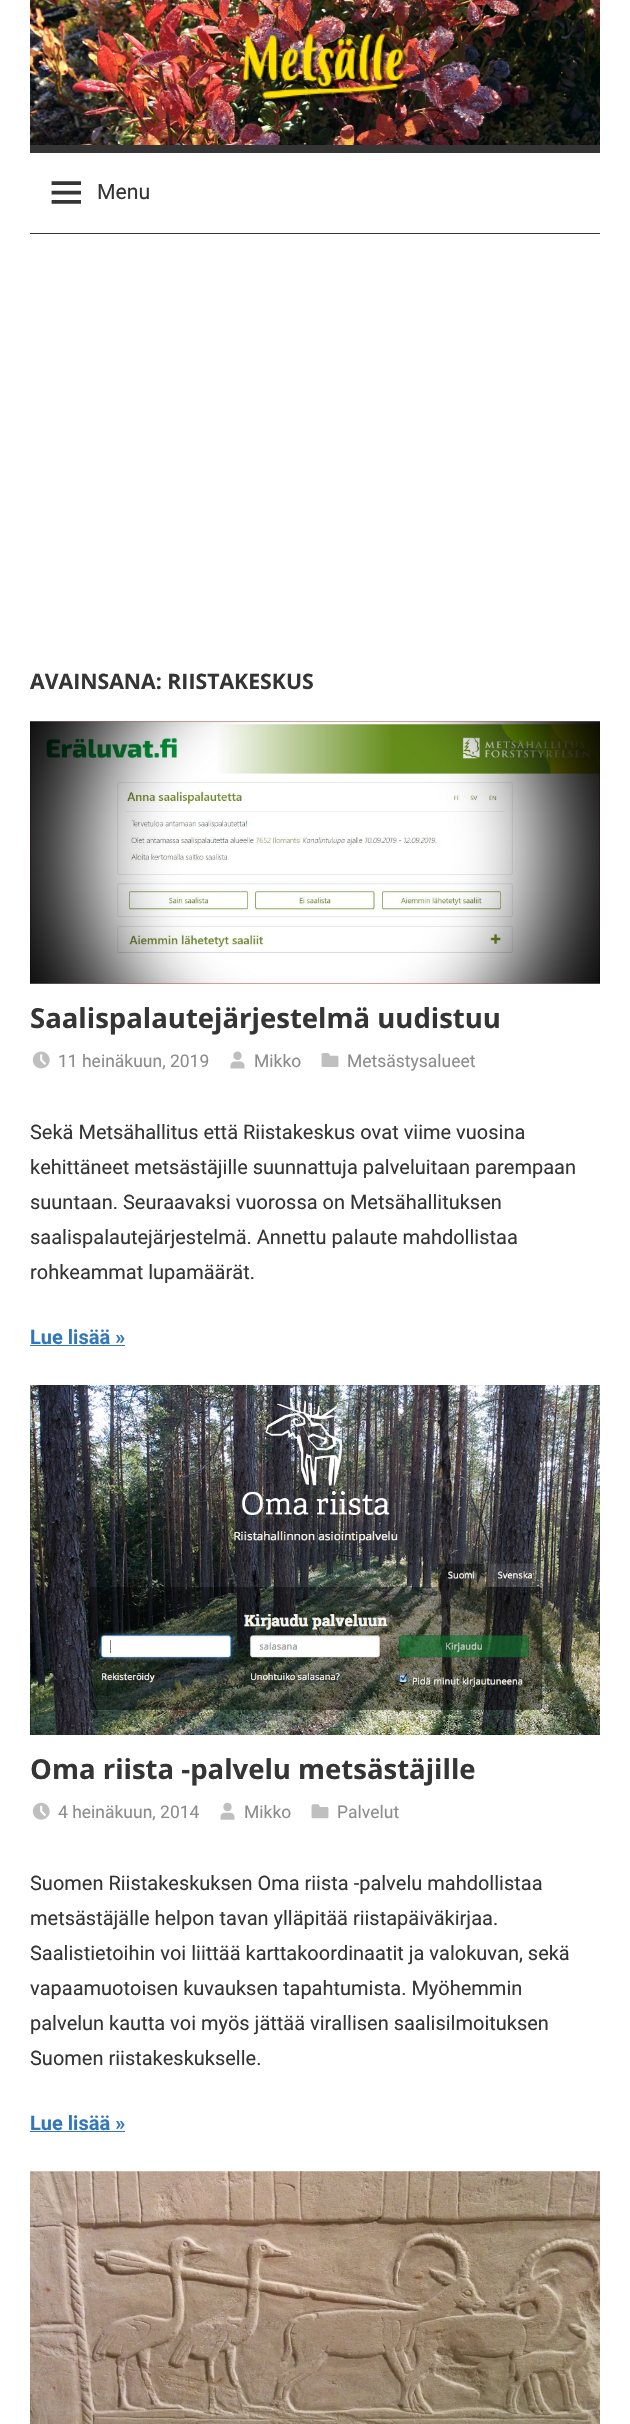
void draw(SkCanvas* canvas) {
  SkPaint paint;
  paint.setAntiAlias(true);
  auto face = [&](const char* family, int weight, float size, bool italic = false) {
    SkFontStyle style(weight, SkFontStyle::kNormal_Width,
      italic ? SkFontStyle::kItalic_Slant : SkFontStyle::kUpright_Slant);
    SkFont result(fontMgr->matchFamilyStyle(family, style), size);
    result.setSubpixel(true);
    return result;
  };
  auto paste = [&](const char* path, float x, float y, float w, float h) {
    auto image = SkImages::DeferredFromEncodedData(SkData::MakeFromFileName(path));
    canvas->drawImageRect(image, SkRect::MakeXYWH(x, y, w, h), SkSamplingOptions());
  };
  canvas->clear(0xffffffff);
  paste("img/1.png", 30, 0, 570, 145);
  paste("img/2.png", 242, 33, 167, 71);
  paint.setColor(0xff353535);
  canvas->drawRect(SkRect::MakeXYWH(30, 145, 570, 8), paint);
  canvas->drawRect(SkRect::MakeXYWH(30, 233, 570, 1), paint);
  paste("img/3.png", 51, 181, 30, 23);
  paste("img/4.png", 30, 721, 570, 263);
  paste("img/5.png", 32, 1051, 18, 18);
  paste("img/6.png", 230, 1051, 15, 18);
  paste("img/7.png", 321, 1053, 18, 14);
  paint.setColor(0xff3377bb);
  canvas->drawRect(SkRect::MakeXYWH(30, 1345, 95, 1), paint);
  paste("img/8.png", 30, 1385, 570, 350);
  paste("img/9.png", 32, 1802, 18, 18);
  paste("img/10.png", 220, 1802, 15, 18);
  paste("img/11.png", 311, 1804, 18, 15);
  canvas->drawRect(SkRect::MakeXYWH(30, 2131, 95, 1), paint);
  paste("img/12.png", 30, 2171, 570, 253);
  auto f0 = face("Roboto", 400, 21.25f);
  paint.setColor(0xff353535);
  canvas->drawString("Menu", 97, 199, f0, paint);
  auto f1 = face("Open Sans", 700, 21.25f);
  canvas->drawString("AVAINSANA: RIISTAKESKUS", 30, 689, f1, paint);
  auto f2 = face("Open Sans", 700, 27.5f);
  canvas->drawString("Saalispalautejärjestelmä uudistuu", 30, 1028, f2, paint);
  auto f3 = face("Roboto", 400, 17.5f);
  paint.setColor(0xff8c8c8c);
  {
    const struct { const char* s; float x, y; } items[] = {
      {"11 heinäkuun, 2019", 58, 1067},
      {"Mikko", 254, 1067},
      {"Metsästysalueet", 347, 1067},
    };
    for (auto [s, x, y] : items) {
      canvas->drawString(s, x, y, f3, paint);
    }
  }
  auto f4 = face("Roboto", 400, 20);
  paint.setColor(0xff353535);
  {
    const struct { const char* s; float x, y; } items[] = {
      {"Sekä Metsähallitus että Riistakeskus ovat viime vuosina", 30, 1139},
      {"kehittäneet metsästäjille suunnattuja palveluitaan parempaan", 30, 1174},
      {"suuntaan. Seuraavaksi vuorossa on Metsähallituksen", 30, 1209},
      {"saalispalautejärjestelmä. Annettu palaute mahdollistaa", 30, 1244},
      {"rohkeammat lupamäärät.", 30, 1279},
    };
    for (auto [s, x, y] : items) {
      canvas->drawString(s, x, y, f4, paint);
    }
  }
  auto f5 = face("Roboto", 700, 20);
  paint.setColor(0xff3377bb);
  canvas->drawString("Lue lisää »", 30, 1344, f5, paint);
  paint.setColor(0xff353535);
  canvas->drawString("Oma riista -palvelu metsästäjille", 30, 1779, f2, paint);
  paint.setColor(0xff8c8c8c);
  {
    const struct { const char* s; float x, y; } items[] = {
      {"4 heinäkuun, 2014", 58, 1818},
      {"Mikko", 244, 1818},
      {"Palvelut", 337, 1818},
    };
    for (auto [s, x, y] : items) {
      canvas->drawString(s, x, y, f3, paint);
    }
  }
  paint.setColor(0xff353535);
  {
    const struct { const char* s; float x, y; } items[] = {
      {"Suomen Riistakeskuksen Oma riista -palvelu mahdollistaa", 30, 1890},
      {"metsästäjälle helpon tavan ylläpitää riistapäiväkirjaa.", 30, 1925},
      {"Saalistietoihin voi liittää karttakoordinaatit ja valokuvan, sekä", 30, 1960},
      {"vapaamuotoisen kuvauksen tapahtumista. Myöhemmin", 30, 1995},
      {"palvelun kautta voi myös jättää virallisen saalisilmoituksen", 30, 2030},
      {"Suomen riistakeskukselle.", 30, 2065},
    };
    for (auto [s, x, y] : items) {
      canvas->drawString(s, x, y, f4, paint);
    }
  }
  paint.setColor(0xff3377bb);
  canvas->drawString("Lue lisää »", 30, 2130, f5, paint);
}
